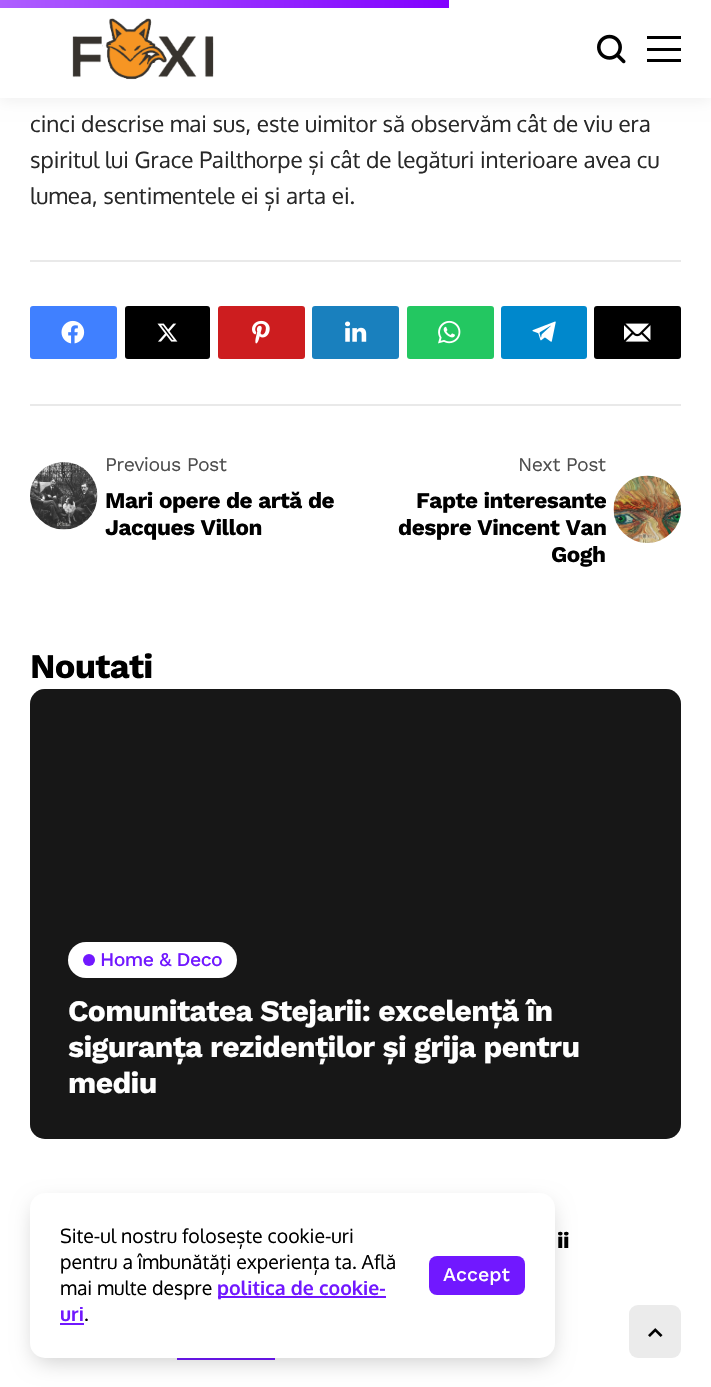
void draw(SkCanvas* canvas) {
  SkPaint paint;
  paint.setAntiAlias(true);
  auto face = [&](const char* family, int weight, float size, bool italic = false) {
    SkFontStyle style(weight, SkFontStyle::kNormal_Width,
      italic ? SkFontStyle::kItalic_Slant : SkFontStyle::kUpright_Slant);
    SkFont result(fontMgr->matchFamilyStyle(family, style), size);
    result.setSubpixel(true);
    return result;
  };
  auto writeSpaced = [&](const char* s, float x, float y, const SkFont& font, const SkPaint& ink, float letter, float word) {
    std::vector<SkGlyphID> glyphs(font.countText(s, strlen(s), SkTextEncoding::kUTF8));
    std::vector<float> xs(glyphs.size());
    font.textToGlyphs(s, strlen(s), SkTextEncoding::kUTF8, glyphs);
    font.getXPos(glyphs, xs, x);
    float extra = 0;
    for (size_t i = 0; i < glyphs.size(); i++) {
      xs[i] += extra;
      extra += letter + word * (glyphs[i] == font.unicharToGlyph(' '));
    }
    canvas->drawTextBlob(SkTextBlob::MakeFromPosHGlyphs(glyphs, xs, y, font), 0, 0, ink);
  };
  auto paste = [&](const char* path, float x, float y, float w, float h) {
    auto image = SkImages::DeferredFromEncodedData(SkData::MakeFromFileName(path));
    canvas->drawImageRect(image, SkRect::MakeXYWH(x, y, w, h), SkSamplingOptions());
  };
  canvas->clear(0xffffffff);
  paint.setColor(0x0f000000);
  paint.setMaskFilter(SkMaskFilter::MakeBlur(kNormal_SkBlurStyle, 7));
  canvas->drawRect(SkRect::MakeXYWH(0, 3, 711, 98), paint);
  paint.setMaskFilter(nullptr);
  paint.setColor(0xffffffff);
  canvas->drawRect(SkRect::MakeXYWH(0, 0, 711, 98), paint);
  paste("img/1.png", 72, 18, 142, 62);
  paste("img/2.png", 597, 34, 29, 30);
  {
    const struct { float x, y, w, h; SkColor color; } items[] = {
      {647, 36, 34, 3, 0xff000000},
      {647, 48, 34, 3, 0xff000000},
      {647, 59, 34, 3, 0xff000000},
    };
    for (auto [x, y, w, h, color] : items) {
      paint.setColor(color);
      canvas->drawRect(SkRect::MakeXYWH(x, y, w, h), paint);
    }
  }
  {
    const SkColor colors[] = {0xffae5eff, 0xff8100ff};
    const float stops[] = {0, 1};
    const SkPoint ends[] = {{0, 3.8f}, {449, 3.7f}};
    paint.setShader(SkGradientShader::MakeLinear(ends, colors, stops, 2, SkTileMode::kClamp));
    paint.setAlpha(255);
  }
  canvas->drawRect(SkRect::MakeXYWH(0, 0, 449, 8), paint);
  paint.setShader(nullptr);
  paint.setColor(0xffe9e9e9);
  canvas->drawRect(SkRect::MakeXYWH(30, 260, 651, 2), paint);
  canvas->drawRect(SkRect::MakeXYWH(30, 404, 651, 2), paint);
  paint.setColor(0xff4080ff);
  canvas->drawRoundRect(SkRect::MakeXYWH(30, 306, 87, 53), 3, 3, paint);
  paste("img/3.png", 61, 320, 24, 24);
  paint.setColor(0xff000000);
  canvas->drawRoundRect(SkRect::MakeXYWH(125, 306, 85, 53), 3, 3, paint);
  paste("img/4.png", 157, 323, 21, 19);
  paint.setColor(0xffcd1d1f);
  canvas->drawRoundRect(SkRect::MakeXYWH(218, 306, 87, 53), 3, 3, paint);
  paste("img/5.png", 252, 320, 18, 24);
  paint.setColor(0xff1980be);
  canvas->drawRoundRect(SkRect::MakeXYWH(312, 306, 87, 53), 3, 3, paint);
  paste("img/6.png", 345, 321, 22, 21);
  paint.setColor(0xff23c761);
  canvas->drawRoundRect(SkRect::MakeXYWH(407, 306, 87, 53), 3, 3, paint);
  paste("img/7.png", 438, 320, 23, 24);
  paint.setColor(0xff0088cc);
  canvas->drawRoundRect(SkRect::MakeXYWH(501, 306, 86, 53), 3, 3, paint);
  paste("img/8.png", 532, 321, 24, 21);
  paint.setColor(0xff000000);
  canvas->drawRoundRect(SkRect::MakeXYWH(594, 306, 87, 53), 3, 3, paint);
  paste("img/9.png", 624, 323, 27, 19);
  paste("img/10.png", 30, 462, 68, 68);
  paste("img/11.png", 613, 475, 68, 68);
  paint.setColor(0xff222222);
  canvas->drawRoundRect(SkRect::MakeXYWH(30, 689, 651, 450), 15, 15, paint);
  paint.setColor(0x59000000);
  canvas->drawRoundRect(SkRect::MakeXYWH(30, 689, 651, 450), 15, 15, paint);
  paint.setColor(0xffffffff);
  canvas->drawRoundRect(SkRect::MakeXYWH(68, 942, 169, 36), 18, 18, paint);
  paint.setColor(0xff7118ff);
  canvas->drawCircle(89, 960, 6, paint);
  canvas->drawRect(SkRect::MakeXYWH(177, 1358, 98, 2), paint);
  paint.setColor(0xffebebeb);
  canvas->drawRoundRect(SkRect::MakeXYWH(629, 1305, 52, 53), 9, 9, paint);
  paste("img/12.png", 648, 1328, 15, 9);
  paint.setColor(0x33000000);
  paint.setMaskFilter(SkMaskFilter::MakeBlur(kNormal_SkBlurStyle, 11));
  canvas->drawRoundRect(SkRect::MakeXYWH(35, 1205, 516, 156), 11, 11, paint);
  paint.setMaskFilter(nullptr);
  paint.setColor(0xffffffff);
  canvas->drawRoundRect(SkRect::MakeXYWH(30, 1193, 525, 165), 15, 15, paint);
  paint.setColor(0xff7118ff);
  canvas->drawRect(SkRect::MakeXYWH(218, 1296, 168, 2), paint);
  canvas->drawRect(SkRect::MakeXYWH(60, 1323, 24, 2), paint);
  canvas->drawRoundRect(SkRect::MakeXYWH(429, 1256, 96, 39), 8, 8, paint);
  auto f0 = face("Oxygen", 400, 22.5f);
  paint.setColor(0xff282828);
  {
    const struct { const char* s; float x, y; } items[] = {
      {"cinci descrise mai sus, este uimitor să observăm cât de viu era", 30, 132},
      {"spiritul lui Grace Pailthorpe și cât de legături interioare avea cu", 30, 168},
      {"lumea, sentimentele ei și arta ei.", 30, 204},
    };
    for (auto [s, x, y] : items) {
      canvas->drawString(s, x, y, f0, paint);
    }
  }
  auto f1 = face("Work Sans", 400, 19.5f);
  paint.setColor(0xff4d4d4d);
  writeSpaced("Previous Post", 105, 471, f1, paint, -0.6f, 0);
  auto f2 = face("Work Sans", 700, 22.5f);
  paint.setColor(0xff000000);
  writeSpaced("Mari opere de artă de", 105, 508, f2, paint, -0.45f, 0);
  writeSpaced("Jacques Villon", 105, 535, f2, paint, -0.45f, 0);
  paint.setColor(0xff4d4d4d);
  writeSpaced("Next Post", 518, 471, f1, paint, -0.6f, 0);
  paint.setColor(0xff000000);
  {
    const struct { const char* s; float x, y; } items[] = {
      {"Fapte interesante", 416, 508},
      {"despre Vincent Van", 398, 535},
      {"Gogh", 551, 562},
    };
    for (auto [s, x, y] : items) {
      writeSpaced(s, x, y, f2, paint, -0.45f, 0);
    }
  }
  auto f3 = face("Work Sans", 700, 34.5f);
  writeSpaced("Noutati", 30, 678, f3, paint, -0.75f, 0);
  auto f4 = face("Work Sans", 500, 19.5f);
  paint.setColor(0xff7118ff);
  writeSpaced("Home & Deco", 100, 966, f4, paint, -0.6f, 0);
  auto f5 = face("Work Sans", 700, 30);
  paint.setColor(0xffffffff);
  {
    const struct { const char* s; float x, y; } items[] = {
      {"Comunitatea Stejarii: excelență în", 68, 1021},
      {"siguranța rezidenților și grija pentru", 68, 1057},
      {"mediu", 68, 1093},
    };
    for (auto [s, x, y] : items) {
      writeSpaced(s, x, y, f5, paint, -0.6f, 0);
    }
  }
  paint.setColor(0xff000000);
  writeSpaced("ii", 557, 1248, f2, paint, -0.45f, 0);
  auto f6 = face("Oxygen", 400, 19.5f);
  {
    const struct { const char* s; float x, y; } items[] = {
      {"Site-ul nostru folosește cookie-uri", 60, 1243},
      {"pentru a îmbunătăți experiența ta. Află", 60, 1269},
      {"mai multe despre", 60, 1295},
    };
    for (auto [s, x, y] : items) {
      canvas->drawString(s, x, y, f6, paint);
    }
  }
  auto f7 = face("Oxygen", 700, 19.5f);
  paint.setColor(0xff7118ff);
  canvas->drawString("politica de cookie-", 217, 1295, f7, paint);
  canvas->drawString("uri", 60, 1321, f7, paint);
  paint.setColor(0xff000000);
  canvas->drawString(".", 84, 1321, f6, paint);
  paint.setColor(0xffffffff);
  canvas->drawString("Accept", 443, 1281, f4, paint);
}
